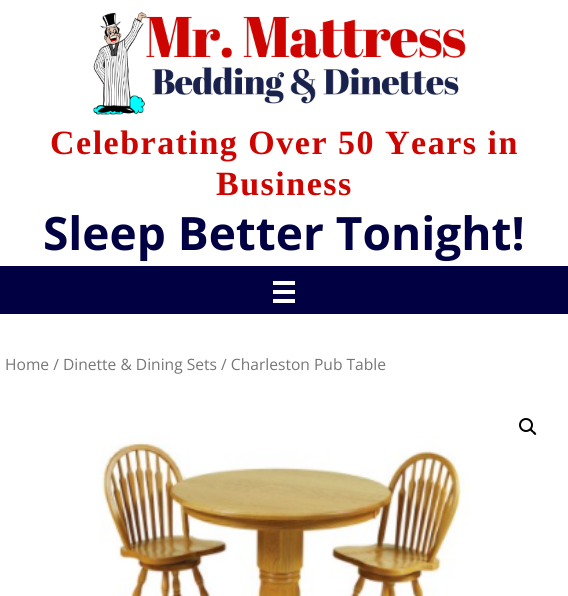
#include <cairo/cairo.h>
#include <math.h>
#include <stddef.h>

static cairo_t *cr;

static void use_color(int r, int g, int b) {
  cairo_set_source_rgb(cr, r / 255.0, g / 255.0, b / 255.0);
}

static void text(double x, double y, const char *s, const char *family, double size, int italic, int bold, int r, int g, int b) {
  cairo_select_font_face(cr, family, italic ? CAIRO_FONT_SLANT_ITALIC : CAIRO_FONT_SLANT_NORMAL,
    bold ? CAIRO_FONT_WEIGHT_BOLD : CAIRO_FONT_WEIGHT_NORMAL);
  cairo_set_font_size(cr, size);
  use_color(r, g, b);
  cairo_move_to(cr, x, y);
  cairo_show_text(cr, s);
}

static void spaced_text(double x, double y, const char *s, double letter, double word) {
  cairo_move_to(cr, x, y);
  while (*s) {
    char ch[5] = {0};
    int n = 0;
    do ch[n++] = *s++; while ((*s & 0xC0) == 0x80);
    cairo_show_text(cr, ch);
    cairo_rel_move_to(cr, letter + word * (*ch == ' '), 0);
  }
}

static void box(double x, double y, double w, double h, int r, int g, int b) {
  use_color(r, g, b);
  cairo_rectangle(cr, x, y, w, h);
  cairo_fill(cr);
}

static void picture(const char *path, double x, double y, double w, double h) {
  cairo_surface_t *image = cairo_image_surface_create_from_png(path);
  cairo_save(cr);
  cairo_set_source_surface(cr, image, x, y);
  cairo_rectangle(cr, x, y, w, h);
  cairo_fill(cr);
  cairo_restore(cr);
  cairo_surface_destroy(image);
}

static void draw(void) {
  use_color(255, 255, 255);
  cairo_paint(cr);
  box(0, 266, 568, 48, 1, 0, 66);
  picture("img_01.png", 93, 12, 373, 103);
  box(273, 281, 22, 4, 255, 255, 255);
  box(273, 290, 22, 4, 255, 255, 255);
  box(273, 299, 22, 4, 255, 255, 255);
  cairo_arc(cr, 526, 425, 6, 0, 2 * M_PI);
  use_color(0, 0, 0);
  cairo_stroke(cr);
  cairo_new_path(cr);
  cairo_move_to(cr, 530, 429);
  cairo_curve_to(cr, 531.5, 428, 533, 430.5, 533.5, 431);
  cairo_curve_to(cr, 534.5, 431.5, 537, 433.5, 536, 434.5);
  cairo_curve_to(cr, 534.5, 436, 533, 433, 532.5, 432.5);
  cairo_curve_to(cr, 531.5, 432, 529, 430, 530, 429);
  cairo_close_path(cr);
  cairo_fill(cr);
  picture("img_02.png", 100, 436, 370, 160);
  cairo_select_font_face(cr, "Liberation Serif", CAIRO_FONT_SLANT_NORMAL, CAIRO_FONT_WEIGHT_BOLD);
  cairo_set_font_size(cr, 34);
  use_color(205, 4, 0);
  spaced_text(50, 154, "Celebrating Over 50 Years in", 1.5, 0);
  spaced_text(216, 195, "Business", 1.5, 0);
  text(43, 250, "Sleep Better Tonight!", "Open Sans", 46, 0, 1, 1, 0, 66);
  text(5, 370, "Home / Dinette & Dining Sets / Charleston Pub Table", "Open Sans", 15.6, 0, 0, 118, 118, 118);
}

int main(void) {
  cairo_surface_t *surface = cairo_image_surface_create(CAIRO_FORMAT_RGB24, 568, 596);
  cr = cairo_create(surface);
  cairo_font_options_t *options = cairo_font_options_create();
  cairo_font_options_set_hint_metrics(options, CAIRO_HINT_METRICS_OFF);
  cairo_font_options_set_hint_style(options, CAIRO_HINT_STYLE_NONE);
  cairo_set_font_options(cr, options);
  cairo_set_miter_limit(cr, 4);
  draw();
  cairo_surface_write_to_png(surface, "out.png");
  cairo_font_options_destroy(options);
  cairo_destroy(cr);
  cairo_surface_destroy(surface);
  return 0;
}
